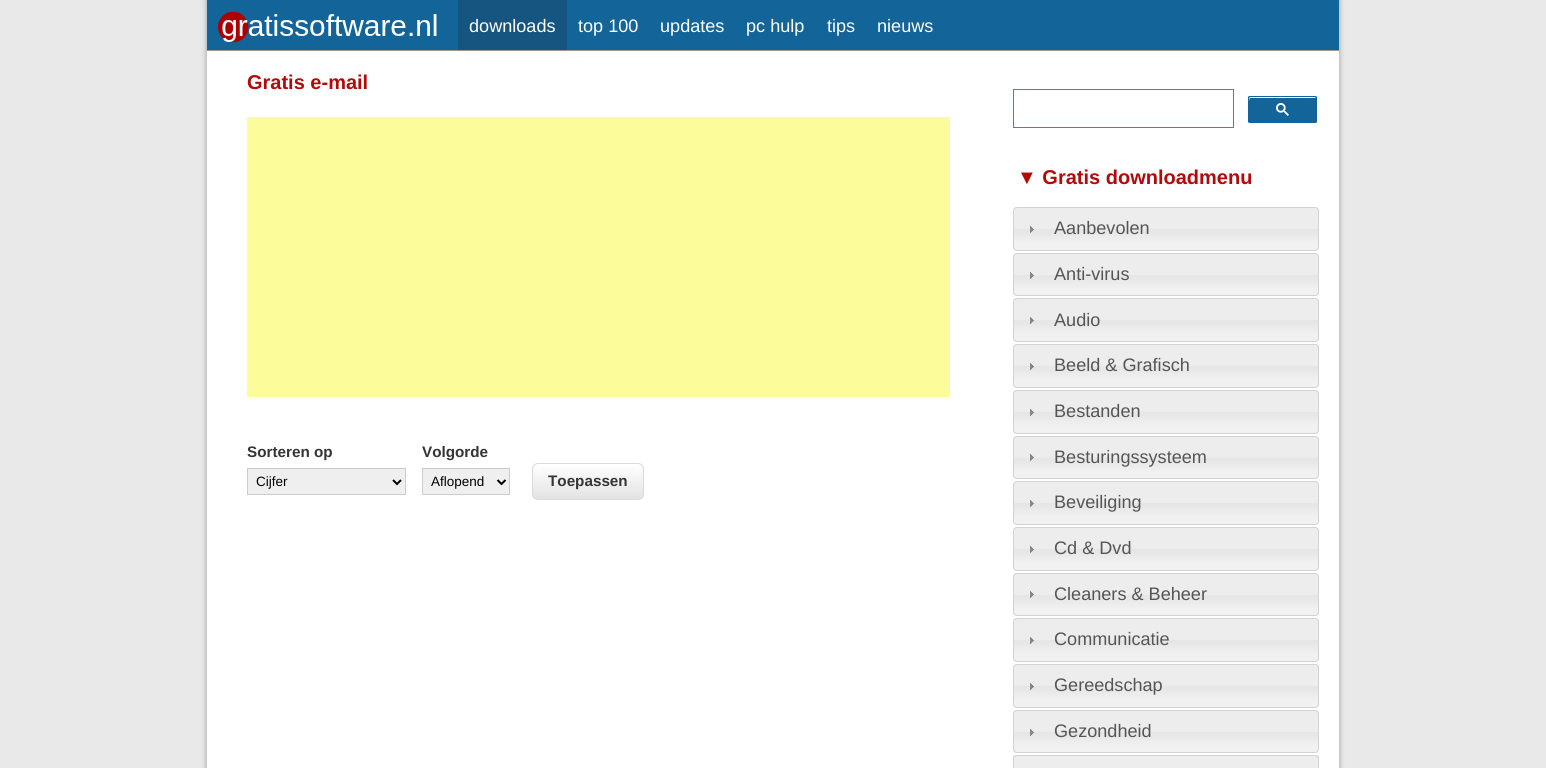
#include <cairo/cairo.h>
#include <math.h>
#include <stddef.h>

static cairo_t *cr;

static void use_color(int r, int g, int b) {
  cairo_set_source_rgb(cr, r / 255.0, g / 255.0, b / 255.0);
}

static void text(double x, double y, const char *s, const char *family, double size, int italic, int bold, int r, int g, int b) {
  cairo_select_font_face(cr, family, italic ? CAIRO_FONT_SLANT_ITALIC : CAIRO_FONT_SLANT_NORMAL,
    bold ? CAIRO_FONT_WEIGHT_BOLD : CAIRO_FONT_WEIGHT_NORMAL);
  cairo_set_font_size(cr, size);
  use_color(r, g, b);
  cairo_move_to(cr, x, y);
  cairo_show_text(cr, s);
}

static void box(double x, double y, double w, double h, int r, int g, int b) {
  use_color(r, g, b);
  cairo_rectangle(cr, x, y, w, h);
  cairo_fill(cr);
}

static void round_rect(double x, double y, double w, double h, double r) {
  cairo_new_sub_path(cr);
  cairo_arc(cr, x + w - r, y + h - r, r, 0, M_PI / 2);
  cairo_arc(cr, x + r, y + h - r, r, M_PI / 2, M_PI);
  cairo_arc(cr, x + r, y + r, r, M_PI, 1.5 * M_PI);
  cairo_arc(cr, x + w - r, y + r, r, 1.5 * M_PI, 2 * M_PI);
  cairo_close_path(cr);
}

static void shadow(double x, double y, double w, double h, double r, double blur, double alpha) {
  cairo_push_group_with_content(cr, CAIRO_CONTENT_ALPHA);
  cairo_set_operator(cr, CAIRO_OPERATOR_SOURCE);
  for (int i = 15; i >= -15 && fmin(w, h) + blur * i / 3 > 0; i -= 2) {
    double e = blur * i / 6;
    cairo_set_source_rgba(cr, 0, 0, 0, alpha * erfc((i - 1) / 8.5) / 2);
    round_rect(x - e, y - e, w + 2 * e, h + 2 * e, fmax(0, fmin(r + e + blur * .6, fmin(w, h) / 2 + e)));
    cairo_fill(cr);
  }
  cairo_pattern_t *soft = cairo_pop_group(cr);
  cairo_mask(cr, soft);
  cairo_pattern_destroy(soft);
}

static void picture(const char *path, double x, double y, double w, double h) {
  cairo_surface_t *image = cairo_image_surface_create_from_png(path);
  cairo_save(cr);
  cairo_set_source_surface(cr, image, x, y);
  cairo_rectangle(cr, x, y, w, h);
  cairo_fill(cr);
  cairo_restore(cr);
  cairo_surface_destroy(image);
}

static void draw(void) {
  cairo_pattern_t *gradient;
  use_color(233, 233, 233);
  cairo_paint(cr);
  use_color(153, 153, 153);
  shadow(207, 0, 1132, 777, 0, 3, 1);
  box(207, 51, 1132, 717, 255, 255, 255);
  box(207, 0, 1132, 50, 18, 100, 153);
  box(207, 50, 1132, 1, 153, 153, 153);
  picture("img_01.png", 218, 11, 219, 32);
  box(458, 0, 109, 50, 22, 85, 127);
  box(247, 117, 703, 280, 253, 252, 155);
  use_color(239, 239, 239);
  cairo_rectangle(cr, 247.5, 468.5, 158, 26);
  cairo_fill_preserve(cr);
  use_color(204, 204, 204);
  cairo_set_line_width(cr, 1);
  cairo_stroke(cr);
  cairo_new_path(cr);
  cairo_move_to(cr, 393, 480);
  cairo_line_to(cr, 397, 484);
  cairo_line_to(cr, 401, 480);
  use_color(0, 0, 0);
  cairo_set_line_width(cr, 2);
  cairo_stroke(cr);
  use_color(239, 239, 239);
  cairo_rectangle(cr, 422.5, 468.5, 87, 26);
  cairo_fill_preserve(cr);
  use_color(204, 204, 204);
  cairo_set_line_width(cr, 1);
  cairo_stroke(cr);
  cairo_new_path(cr);
  cairo_move_to(cr, 497.5, 480);
  cairo_line_to(cr, 501.5, 484);
  cairo_line_to(cr, 505.5, 480);
  use_color(0, 0, 0);
  cairo_set_line_width(cr, 2);
  cairo_stroke(cr);
  cairo_save(cr);
  round_rect(532, 463, 112, 37, 6);
  cairo_clip(cr);
  gradient = cairo_pattern_create_linear(588, 464, 588, 499);
  cairo_pattern_add_color_stop_rgba(gradient, 0, 1, 1, 1, 1);
  cairo_pattern_add_color_stop_rgba(gradient, 1, 0.89, 0.89, 0.89, 1);
  cairo_set_source(cr, gradient);
  cairo_pattern_destroy(gradient);
  cairo_rectangle(cr, 532, 464, 112, 35);
  cairo_fill(cr);
  cairo_restore(cr);
  round_rect(532.5, 463.5, 111, 36, 5.5);
  use_color(219, 219, 219);
  cairo_set_line_width(cr, 1);
  cairo_stroke(cr);
  cairo_rectangle(cr, 1013.5, 89.5, 220, 38);
  use_color(61, 133, 198);
  cairo_stroke(cr);
  use_color(18, 100, 153);
  round_rect(1248, 96, 69, 27, 2);
  cairo_fill(cr);
  use_color(255, 255, 255);
  cairo_set_fill_rule(cr, CAIRO_FILL_RULE_EVEN_ODD);
  cairo_new_path(cr);
  cairo_move_to(cr, 1250, 98);
  cairo_line_to(cr, 1316, 98);
  cairo_line_to(cr, 1315, 97);
  cairo_line_to(cr, 1261, 97);
  cairo_curve_to(cr, 1251, 97, 1249, 94, 1249, 101);
  cairo_close_path(cr);
  cairo_move_to(cr, 1249, 122);
  cairo_line_to(cr, 1249, 118);
  cairo_close_path(cr);
  cairo_fill(cr);
  round_rect(1248.5, 96.5, 68, 26, 1.5);
  use_color(18, 100, 153);
  cairo_stroke(cr);
  picture("img_02.png", 1276, 103, 13, 13);
  picture("img_03.png", 1013, 207, 306, 44);
  round_rect(1013.5, 207.5, 305, 43, 3.5);
  use_color(211, 211, 211);
  cairo_stroke(cr);
  picture("img_04.png", 1030, 226, 4, 7);
  picture("img_05.png", 1013, 253, 306, 43);
  round_rect(1013.5, 253.5, 305, 42, 3.5);
  cairo_stroke(cr);
  picture("img_04.png", 1030, 272, 4, 7);
  picture("img_03.png", 1013, 298, 306, 44);
  round_rect(1013.5, 298.5, 305, 43, 3.5);
  cairo_stroke(cr);
  picture("img_04.png", 1030, 317, 4, 7);
  picture("img_03.png", 1013, 344, 306, 44);
  round_rect(1013.5, 344.5, 305, 43, 3.5);
  cairo_stroke(cr);
  picture("img_04.png", 1030, 363, 4, 7);
  picture("img_03.png", 1013, 390, 306, 44);
  round_rect(1013.5, 390.5, 305, 43, 3.5);
  cairo_stroke(cr);
  picture("img_04.png", 1030, 409, 4, 7);
  picture("img_06.png", 1013, 436, 306, 43);
  round_rect(1013.5, 436.5, 305, 42, 3.5);
  cairo_stroke(cr);
  picture("img_07.png", 1030, 454, 4, 7);
  picture("img_03.png", 1013, 481, 306, 44);
  round_rect(1013.5, 481.5, 305, 43, 3.5);
  cairo_stroke(cr);
  picture("img_04.png", 1030, 500, 4, 7);
  picture("img_03.png", 1013, 527, 306, 44);
  round_rect(1013.5, 527.5, 305, 43, 3.5);
  cairo_stroke(cr);
  picture("img_04.png", 1030, 546, 4, 7);
  picture("img_06.png", 1013, 573, 306, 43);
  round_rect(1013.5, 573.5, 305, 42, 3.5);
  cairo_stroke(cr);
  picture("img_07.png", 1030, 591, 4, 7);
  picture("img_03.png", 1013, 618, 306, 44);
  round_rect(1013.5, 618.5, 305, 43, 3.5);
  cairo_stroke(cr);
  picture("img_04.png", 1030, 637, 4, 7);
  picture("img_03.png", 1013, 664, 306, 44);
  round_rect(1013.5, 664.5, 305, 43, 3.5);
  cairo_stroke(cr);
  picture("img_04.png", 1030, 683, 4, 7);
  picture("img_06.png", 1013, 710, 306, 43);
  round_rect(1013.5, 710.5, 305, 42, 3.5);
  cairo_stroke(cr);
  picture("img_04.png", 1030, 729, 4, 7);
  box(1013, 755, 306, 13, 237, 237, 237);
  round_rect(1013.5, 755.5, 305, 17, 3.5);
  use_color(211, 211, 211);
  cairo_stroke(cr);
  text(469, 32, "downloads", "Liberation Sans", 18.1, 0, 0, 255, 255, 255);
  text(578, 32, "top 100", "Liberation Sans", 18.1, 0, 0, 255, 255, 255);
  text(660, 32, "updates", "Liberation Sans", 18.1, 0, 0, 255, 255, 255);
  text(746, 32, "pc hulp", "Liberation Sans", 18.1, 0, 0, 255, 255, 255);
  text(827, 32, "tips", "Liberation Sans", 18.1, 0, 0, 255, 255, 255);
  text(877, 32, "nieuws", "Liberation Sans", 18.1, 0, 0, 255, 255, 255);
  text(247, 89, "Gratis e-mail", "Liberation Sans", 20, 0, 1, 179, 9, 9);
  text(247, 457, "Sorteren op", "Liberation Sans", 15.25, 0, 1, 53, 53, 53);
  text(256, 486, "Cijfer", "Liberation Sans", 13.5, 0, 0, 0, 0, 0);
  text(422, 457, "Volgorde", "Liberation Sans", 15.25, 0, 1, 53, 53, 53);
  text(431, 486, "Aflopend", "Liberation Sans", 13.5, 0, 0, 0, 0, 0);
  text(548, 486, "Toepassen", "Liberation Sans", 15.25, 0, 1, 53, 53, 53);
  text(1017, 184, "▼ Gratis downloadmenu", "Liberation Sans", 20, 0, 1, 179, 9, 9);
  text(1054, 234, "Aanbevolen", "Liberation Sans", 18.1, 0, 0, 85, 85, 85);
  text(1054, 280, "Anti-virus", "Liberation Sans", 18.1, 0, 0, 85, 85, 85);
  text(1054, 326, "Audio", "Liberation Sans", 18.1, 0, 0, 85, 85, 85);
  text(1054, 371, "Beeld & Grafisch", "Liberation Sans", 18.1, 0, 0, 85, 85, 85);
  text(1054, 417, "Bestanden", "Liberation Sans", 18.1, 0, 0, 85, 85, 85);
  text(1054, 463, "Besturingssysteem", "Liberation Sans", 18.1, 0, 0, 85, 85, 85);
  text(1054, 508, "Beveiliging", "Liberation Sans", 18.1, 0, 0, 85, 85, 85);
  text(1054, 554, "Cd & Dvd", "Liberation Sans", 18.1, 0, 0, 85, 85, 85);
  text(1054, 600, "Cleaners & Beheer", "Liberation Sans", 18.1, 0, 0, 85, 85, 85);
  text(1054, 645, "Communicatie", "Liberation Sans", 18.1, 0, 0, 85, 85, 85);
  text(1054, 691, "Gereedschap", "Liberation Sans", 18.1, 0, 0, 85, 85, 85);
  text(1054, 737, "Gezondheid", "Liberation Sans", 18.1, 0, 0, 85, 85, 85);
}

int main(void) {
  cairo_surface_t *surface = cairo_image_surface_create(CAIRO_FORMAT_RGB24, 1546, 768);
  cr = cairo_create(surface);
  cairo_font_options_t *options = cairo_font_options_create();
  cairo_font_options_set_hint_metrics(options, CAIRO_HINT_METRICS_OFF);
  cairo_font_options_set_hint_style(options, CAIRO_HINT_STYLE_NONE);
  cairo_set_font_options(cr, options);
  cairo_set_miter_limit(cr, 4);
  draw();
  cairo_surface_write_to_png(surface, "out.png");
  cairo_font_options_destroy(options);
  cairo_destroy(cr);
  cairo_surface_destroy(surface);
  return 0;
}
